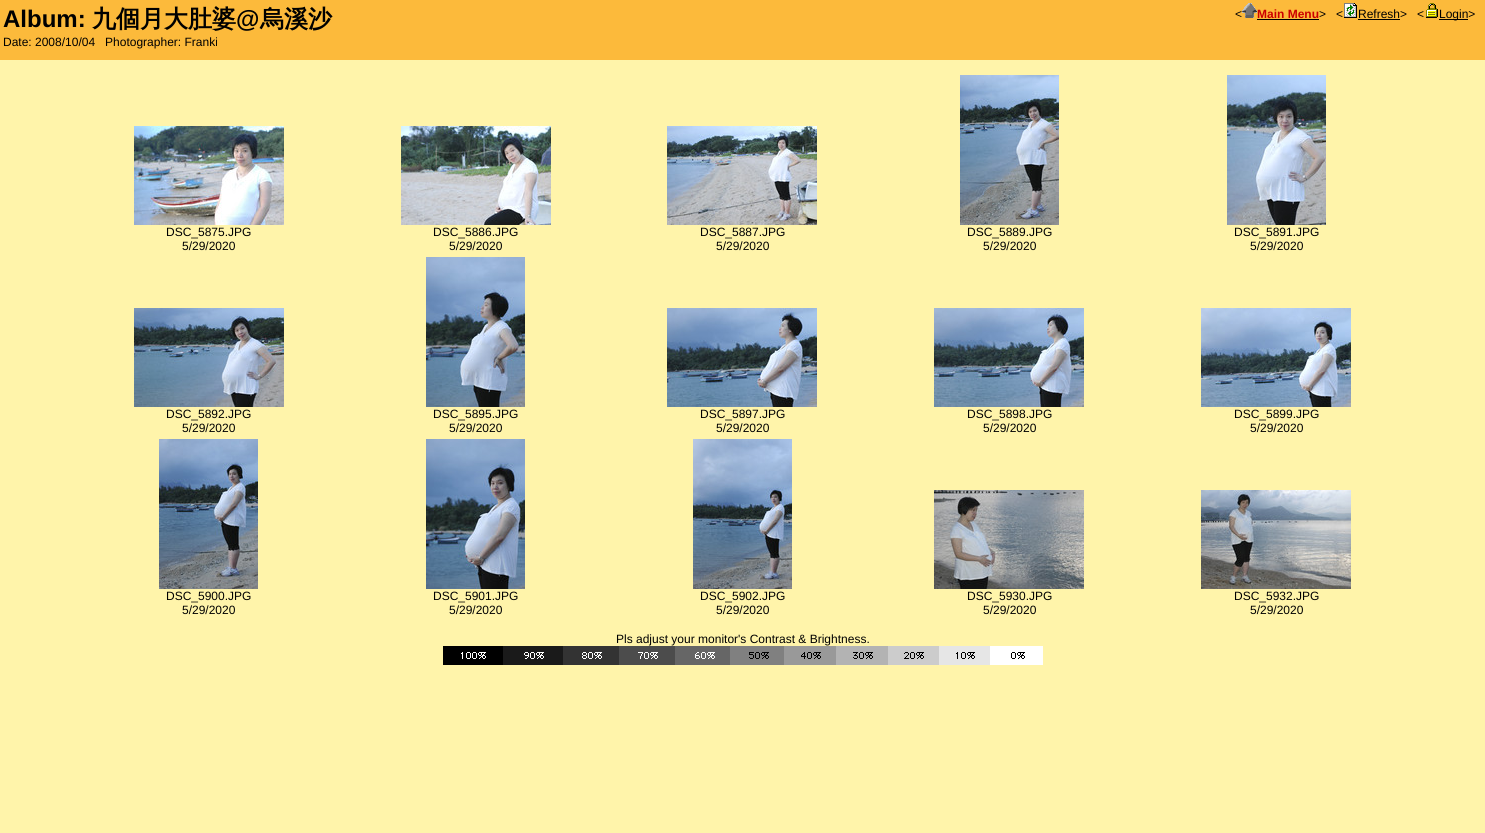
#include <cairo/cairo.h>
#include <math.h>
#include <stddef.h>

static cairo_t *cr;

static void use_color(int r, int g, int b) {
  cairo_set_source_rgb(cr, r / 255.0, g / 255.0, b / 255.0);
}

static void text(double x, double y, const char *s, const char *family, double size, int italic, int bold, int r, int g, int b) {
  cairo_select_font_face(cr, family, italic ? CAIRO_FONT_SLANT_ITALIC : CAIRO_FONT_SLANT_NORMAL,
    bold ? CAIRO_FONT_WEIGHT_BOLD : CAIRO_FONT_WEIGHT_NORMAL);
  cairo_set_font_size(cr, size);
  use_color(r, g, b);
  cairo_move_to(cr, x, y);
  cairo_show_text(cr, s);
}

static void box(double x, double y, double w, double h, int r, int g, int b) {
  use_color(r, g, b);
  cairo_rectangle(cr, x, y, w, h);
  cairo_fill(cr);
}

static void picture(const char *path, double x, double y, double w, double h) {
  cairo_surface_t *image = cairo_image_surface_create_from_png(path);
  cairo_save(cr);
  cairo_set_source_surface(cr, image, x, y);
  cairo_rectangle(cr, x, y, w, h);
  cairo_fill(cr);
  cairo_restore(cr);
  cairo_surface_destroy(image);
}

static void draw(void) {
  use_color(255, 244, 170);
  cairo_paint(cr);
  box(0, 0, 1485, 60, 252, 186, 59);
  picture("img_01.png", 1242, 3, 15, 15);
  box(1257, 19, 62, 1, 0, 0, 0);
  picture("img_02.png", 1344, 3, 13, 15);
  box(1358, 19, 42, 1, 0, 0, 0);
  picture("img_03.png", 1426, 3, 12, 15);
  box(1439, 19, 29, 1, 0, 0, 0);
  picture("img_04.png", 134, 126, 150, 99);
  picture("img_05.png", 401, 126, 150, 99);
  picture("img_06.png", 667, 126, 150, 99);
  picture("img_07.png", 960, 75, 99, 150);
  picture("img_08.png", 1227, 75, 99, 150);
  picture("img_09.png", 134, 308, 150, 99);
  picture("img_10.png", 426, 257, 99, 150);
  picture("img_11.png", 667, 308, 150, 99);
  picture("img_12.png", 934, 308, 150, 99);
  picture("img_13.png", 1201, 308, 150, 99);
  picture("img_14.png", 159, 439, 99, 150);
  picture("img_15.png", 426, 439, 99, 150);
  picture("img_16.png", 693, 439, 99, 150);
  picture("img_17.png", 934, 490, 150, 99);
  picture("img_18.png", 1201, 490, 150, 99);
  picture("img_19.png", 443, 646, 600, 19);
  text(3, 27, "Album:", "Liberation Sans", 24, 0, 1, 0, 0, 0);
  text(92, 27, "九個月大肚婆", "WenQuanYi Zen Hei", 24, 0, 1, 0, 0, 0);
  text(236, 27, "@", "Liberation Sans", 24, 0, 1, 0, 0, 0);
  text(260, 27, "烏溪沙", "WenQuanYi Zen Hei", 24, 0, 1, 0, 0, 0);
  text(3, 46, "Date: 2008/10/04   Photographer: Franki", "Liberation Sans", 12, 0, 0, 0, 0, 0);
  text(1235, 18, "<", "Liberation Sans", 12, 0, 0, 0, 0, 0);
  text(1257, 18, "Main Menu", "Liberation Sans", 12, 0, 1, 204, 0, 0);
  text(1319, 18, ">   <", "Liberation Sans", 12, 0, 0, 0, 0, 0);
  text(1358, 18, "Refresh>   <", "Liberation Sans", 12, 0, 0, 0, 0, 0);
  text(1439, 18, "Login>", "Liberation Sans", 12, 0, 0, 0, 0, 0);
  text(166, 236, "DSC_5875.JPG", "Liberation Sans", 12, 0, 0, 0, 0, 0);
  text(182, 250, "5/29/2020", "Liberation Sans", 12, 0, 0, 0, 0, 0);
  text(433, 236, "DSC_5886.JPG", "Liberation Sans", 12, 0, 0, 0, 0, 0);
  text(449, 250, "5/29/2020", "Liberation Sans", 12, 0, 0, 0, 0, 0);
  text(700, 236, "DSC_5887.JPG", "Liberation Sans", 12, 0, 0, 0, 0, 0);
  text(716, 250, "5/29/2020", "Liberation Sans", 12, 0, 0, 0, 0, 0);
  text(967, 236, "DSC_5889.JPG", "Liberation Sans", 12, 0, 0, 0, 0, 0);
  text(983, 250, "5/29/2020", "Liberation Sans", 12, 0, 0, 0, 0, 0);
  text(1234, 236, "DSC_5891.JPG", "Liberation Sans", 12, 0, 0, 0, 0, 0);
  text(1250, 250, "5/29/2020", "Liberation Sans", 12, 0, 0, 0, 0, 0);
  text(166, 418, "DSC_5892.JPG", "Liberation Sans", 12, 0, 0, 0, 0, 0);
  text(182, 432, "5/29/2020", "Liberation Sans", 12, 0, 0, 0, 0, 0);
  text(433, 418, "DSC_5895.JPG", "Liberation Sans", 12, 0, 0, 0, 0, 0);
  text(449, 432, "5/29/2020", "Liberation Sans", 12, 0, 0, 0, 0, 0);
  text(700, 418, "DSC_5897.JPG", "Liberation Sans", 12, 0, 0, 0, 0, 0);
  text(716, 432, "5/29/2020", "Liberation Sans", 12, 0, 0, 0, 0, 0);
  text(967, 418, "DSC_5898.JPG", "Liberation Sans", 12, 0, 0, 0, 0, 0);
  text(983, 432, "5/29/2020", "Liberation Sans", 12, 0, 0, 0, 0, 0);
  text(1234, 418, "DSC_5899.JPG", "Liberation Sans", 12, 0, 0, 0, 0, 0);
  text(1250, 432, "5/29/2020", "Liberation Sans", 12, 0, 0, 0, 0, 0);
  text(166, 600, "DSC_5900.JPG", "Liberation Sans", 12, 0, 0, 0, 0, 0);
  text(182, 614, "5/29/2020", "Liberation Sans", 12, 0, 0, 0, 0, 0);
  text(433, 600, "DSC_5901.JPG", "Liberation Sans", 12, 0, 0, 0, 0, 0);
  text(449, 614, "5/29/2020", "Liberation Sans", 12, 0, 0, 0, 0, 0);
  text(700, 600, "DSC_5902.JPG", "Liberation Sans", 12, 0, 0, 0, 0, 0);
  text(716, 614, "5/29/2020", "Liberation Sans", 12, 0, 0, 0, 0, 0);
  text(967, 600, "DSC_5930.JPG", "Liberation Sans", 12, 0, 0, 0, 0, 0);
  text(983, 614, "5/29/2020", "Liberation Sans", 12, 0, 0, 0, 0, 0);
  text(1234, 600, "DSC_5932.JPG", "Liberation Sans", 12, 0, 0, 0, 0, 0);
  text(1250, 614, "5/29/2020", "Liberation Sans", 12, 0, 0, 0, 0, 0);
  text(616, 643, "Pls adjust your monitor's Contrast & Brightness.", "Liberation Sans", 12, 0, 0, 0, 0, 0);
}

int main(void) {
  cairo_surface_t *surface = cairo_image_surface_create(CAIRO_FORMAT_RGB24, 1485, 833);
  cr = cairo_create(surface);
  cairo_font_options_t *options = cairo_font_options_create();
  cairo_font_options_set_hint_metrics(options, CAIRO_HINT_METRICS_OFF);
  cairo_font_options_set_hint_style(options, CAIRO_HINT_STYLE_NONE);
  cairo_set_font_options(cr, options);
  cairo_set_miter_limit(cr, 4);
  draw();
  cairo_surface_write_to_png(surface, "out.png");
  cairo_font_options_destroy(options);
  cairo_destroy(cr);
  cairo_surface_destroy(surface);
  return 0;
}
